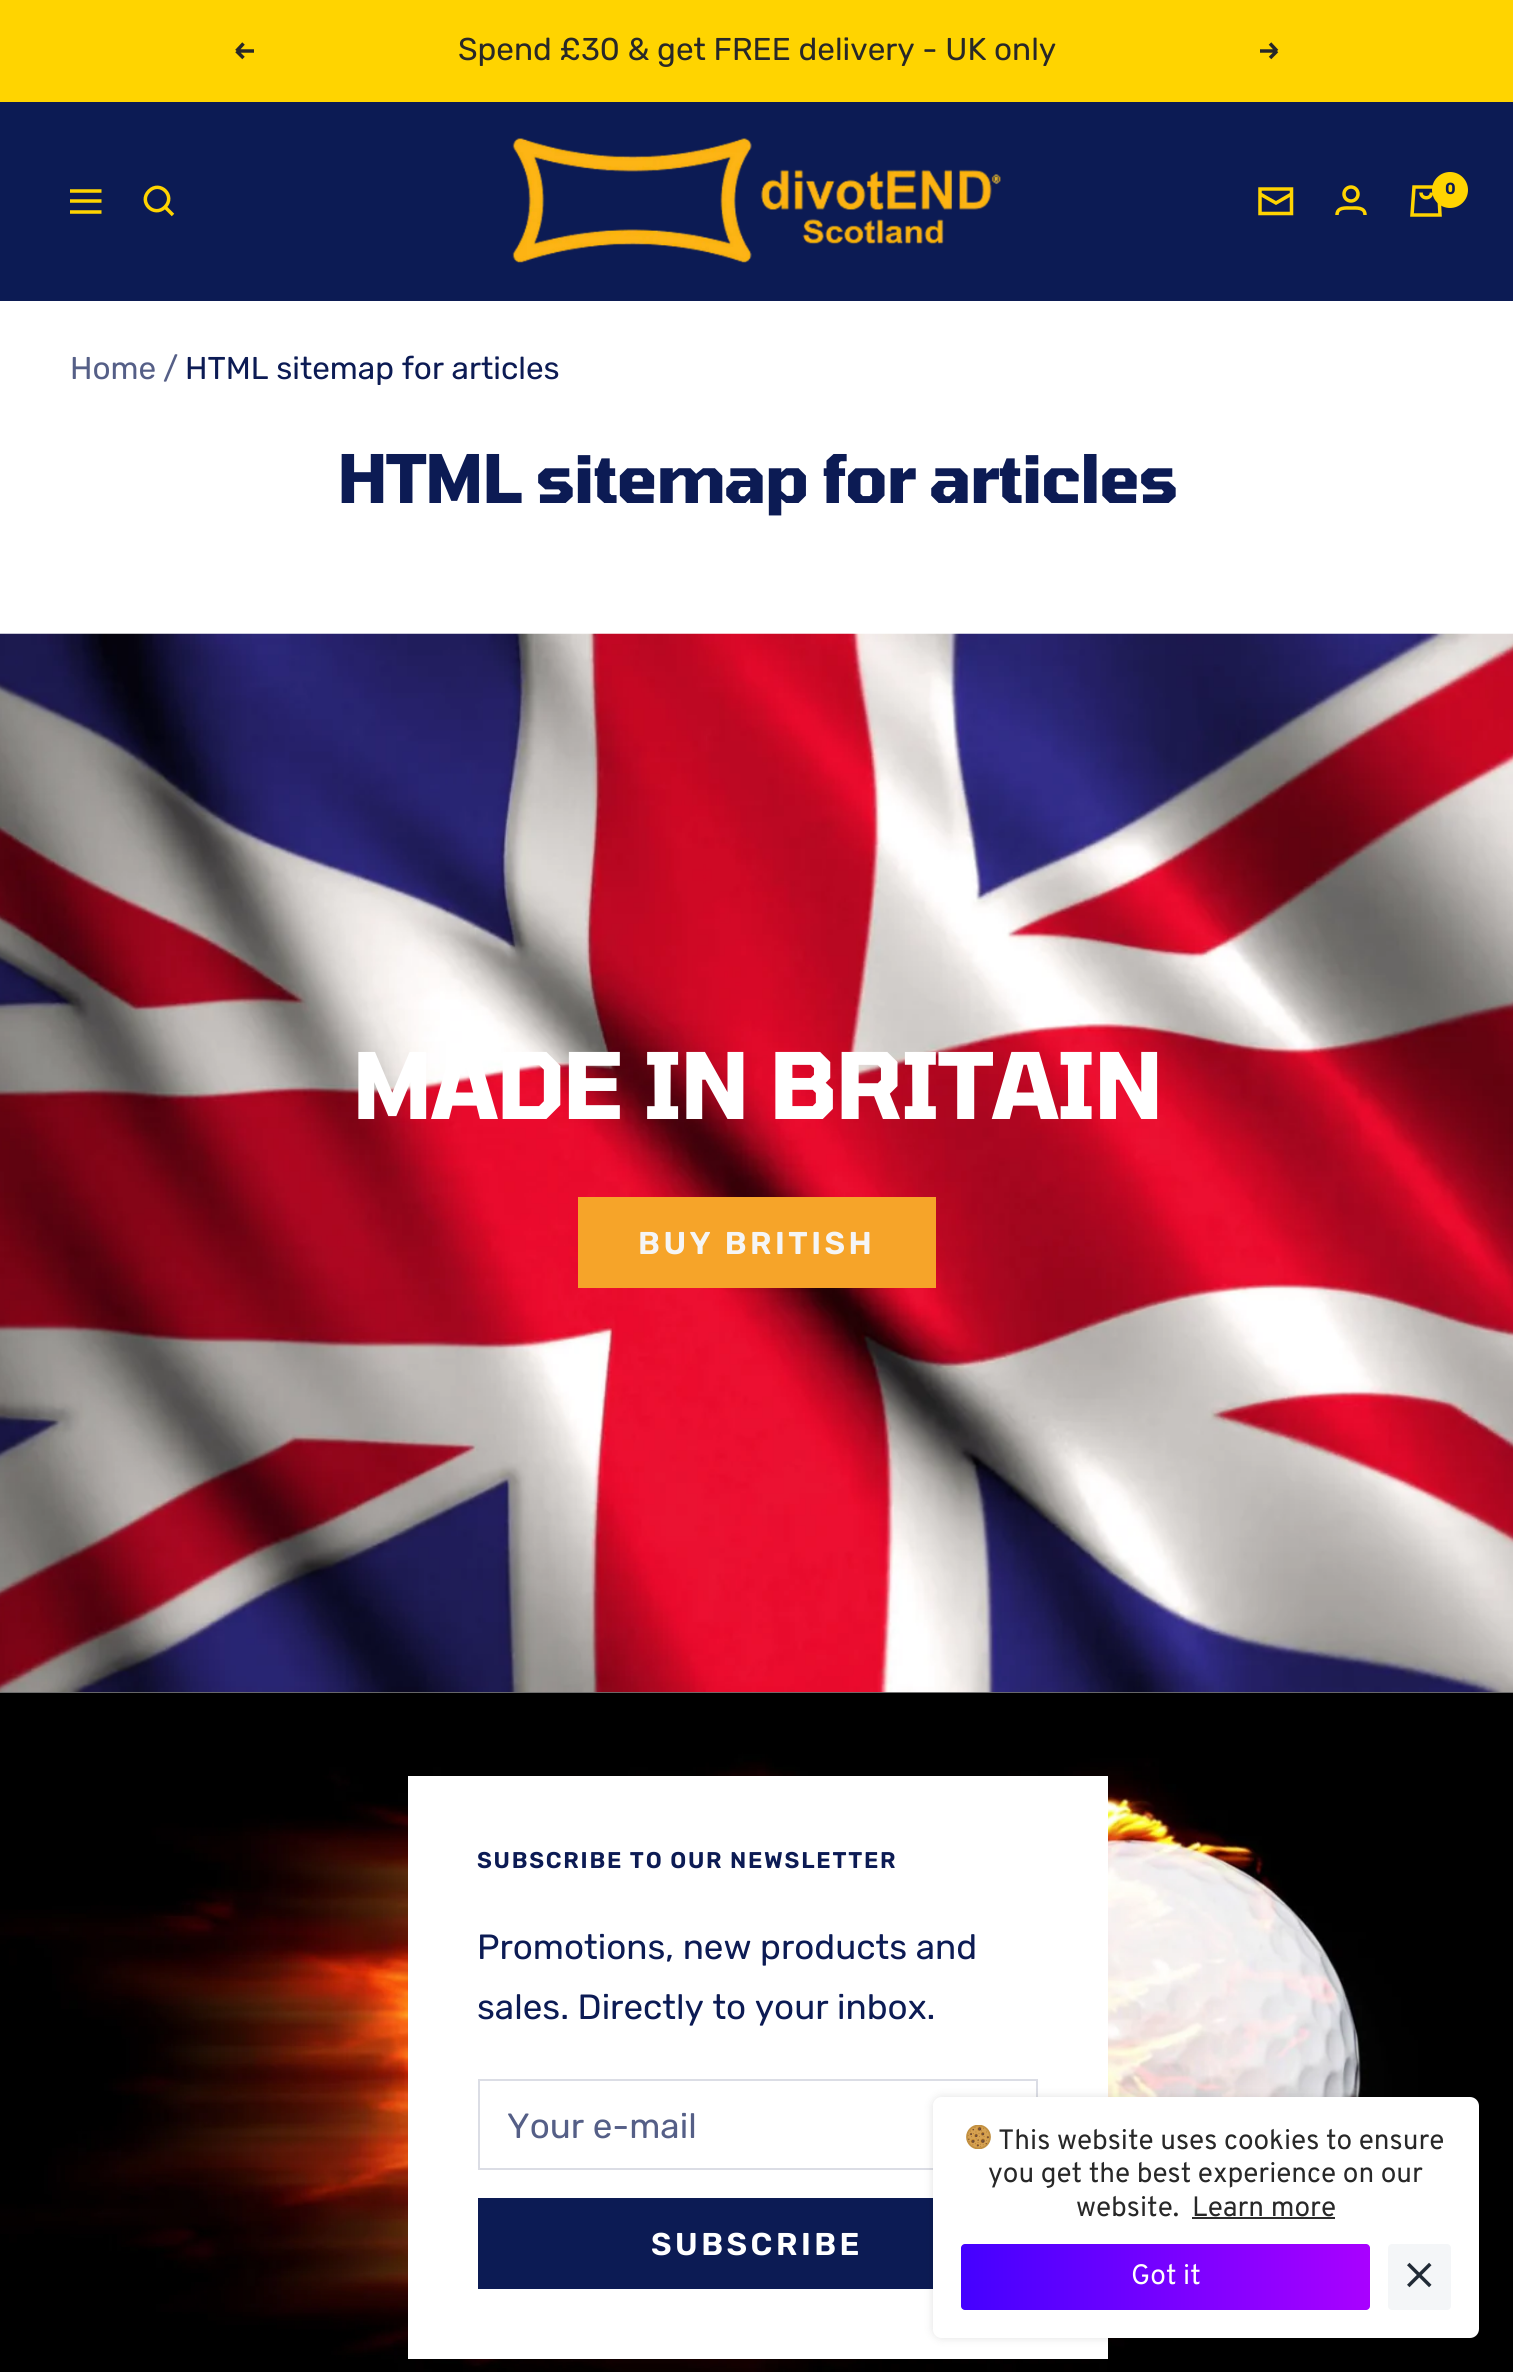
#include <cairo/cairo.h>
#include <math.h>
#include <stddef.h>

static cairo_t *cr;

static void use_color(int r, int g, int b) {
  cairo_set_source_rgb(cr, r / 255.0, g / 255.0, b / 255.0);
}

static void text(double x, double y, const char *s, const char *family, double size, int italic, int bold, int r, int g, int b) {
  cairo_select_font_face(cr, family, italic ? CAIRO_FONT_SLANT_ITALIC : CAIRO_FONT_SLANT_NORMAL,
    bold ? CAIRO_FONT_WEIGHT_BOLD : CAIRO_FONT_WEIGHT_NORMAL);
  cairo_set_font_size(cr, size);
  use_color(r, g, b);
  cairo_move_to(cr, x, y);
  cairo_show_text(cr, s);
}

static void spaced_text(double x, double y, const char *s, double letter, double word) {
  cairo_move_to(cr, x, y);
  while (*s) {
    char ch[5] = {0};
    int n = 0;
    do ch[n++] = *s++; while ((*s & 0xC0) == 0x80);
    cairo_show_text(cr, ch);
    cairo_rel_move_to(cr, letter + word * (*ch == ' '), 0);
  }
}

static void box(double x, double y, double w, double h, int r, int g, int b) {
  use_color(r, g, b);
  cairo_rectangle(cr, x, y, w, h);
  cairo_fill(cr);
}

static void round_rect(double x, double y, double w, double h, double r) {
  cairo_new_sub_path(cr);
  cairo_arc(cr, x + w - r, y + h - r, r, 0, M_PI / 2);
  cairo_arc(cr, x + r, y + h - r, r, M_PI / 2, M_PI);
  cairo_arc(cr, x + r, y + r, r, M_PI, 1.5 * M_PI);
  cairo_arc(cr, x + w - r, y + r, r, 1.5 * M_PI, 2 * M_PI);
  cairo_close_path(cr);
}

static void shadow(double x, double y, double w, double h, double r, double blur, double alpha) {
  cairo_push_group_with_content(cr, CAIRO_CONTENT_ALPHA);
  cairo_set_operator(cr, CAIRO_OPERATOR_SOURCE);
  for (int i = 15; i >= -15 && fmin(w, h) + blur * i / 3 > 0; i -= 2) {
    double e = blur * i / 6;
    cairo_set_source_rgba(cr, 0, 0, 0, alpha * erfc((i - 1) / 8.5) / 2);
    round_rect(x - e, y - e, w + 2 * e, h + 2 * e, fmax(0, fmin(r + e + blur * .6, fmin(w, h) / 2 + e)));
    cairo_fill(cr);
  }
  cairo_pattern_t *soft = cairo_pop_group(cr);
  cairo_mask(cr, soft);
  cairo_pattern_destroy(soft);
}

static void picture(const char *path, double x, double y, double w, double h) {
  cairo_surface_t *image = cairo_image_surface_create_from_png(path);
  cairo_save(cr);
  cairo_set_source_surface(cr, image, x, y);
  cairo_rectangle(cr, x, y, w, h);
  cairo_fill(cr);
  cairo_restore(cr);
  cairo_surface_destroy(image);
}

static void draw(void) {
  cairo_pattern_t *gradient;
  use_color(255, 255, 255);
  cairo_paint(cr);
  box(0, 0, 1513, 102, 255, 212, 0);
  cairo_new_path(cr);
  cairo_move_to(cr, 254, 51);
  cairo_line_to(cr, 236.5, 51);
  cairo_move_to(cr, 236.5, 51);
  cairo_line_to(cr, 243.5, 58);
  cairo_move_to(cr, 236.5, 51);
  cairo_line_to(cr, 243.5, 43.5);
  use_color(40, 40, 40);
  cairo_set_line_width(cr, 3.5);
  cairo_stroke(cr);
  cairo_new_path(cr);
  cairo_move_to(cr, 1260, 51);
  cairo_line_to(cr, 1277, 51);
  cairo_move_to(cr, 1277, 51);
  cairo_line_to(cr, 1270, 58);
  cairo_move_to(cr, 1277, 51);
  cairo_line_to(cr, 1270, 43.5);
  cairo_stroke(cr);
  box(0, 102, 1513, 199, 12, 27, 84);
  cairo_new_path(cr);
  cairo_move_to(cr, 70, 191);
  cairo_line_to(cr, 101.5, 191);
  cairo_move_to(cr, 70, 212);
  cairo_line_to(cr, 101.5, 212);
  cairo_close_path(cr);
  cairo_move_to(cr, 70, 201);
  cairo_line_to(cr, 101.5, 201);
  cairo_close_path(cr);
  use_color(255, 212, 0);
  cairo_stroke(cr);
  cairo_new_path(cr);
  cairo_move_to(cr, 165, 207);
  cairo_curve_to(cr, 176, 196, 160, 180, 149, 191);
  cairo_curve_to(cr, 138, 202, 154, 218, 165, 207);
  cairo_close_path(cr);
  cairo_move_to(cr, 165, 207);
  cairo_line_to(cr, 173, 215);
  cairo_stroke(cr);
  picture("img_01.png", 512, 138, 489, 125);
  cairo_new_path(cr);
  cairo_move_to(cr, 1291.5, 194);
  cairo_line_to(cr, 1276, 203);
  cairo_line_to(cr, 1260, 194);
  cairo_move_to(cr, 1260, 189);
  cairo_line_to(cr, 1291.5, 189);
  cairo_line_to(cr, 1291.5, 213.5);
  cairo_line_to(cr, 1260, 213.5);
  cairo_close_path(cr);
  cairo_stroke(cr);
  cairo_arc(cr, 1351, 194, 7, 0, 2 * M_PI);
  cairo_stroke(cr);
  cairo_new_path(cr);
  cairo_move_to(cr, 1337, 215);
  cairo_curve_to(cr, 1337, 207, 1345.5, 208, 1351, 208);
  cairo_curve_to(cr, 1356.5, 208, 1365, 207, 1365, 215);
  cairo_stroke(cr);
  cairo_new_path(cr);
  cairo_move_to(cr, 1414, 187);
  cairo_line_to(cr, 1438.5, 187);
  cairo_line_to(cr, 1440, 215);
  cairo_line_to(cr, 1412, 215);
  cairo_close_path(cr);
  cairo_move_to(cr, 1421, 192.5);
  cairo_curve_to(cr, 1421, 199.5, 1431.5, 199.5, 1431.5, 192.5);
  cairo_stroke(cr);
  cairo_arc(cr, 1450, 190, 18, 0, 2 * M_PI);
  cairo_fill(cr);
  box(0, 1692, 1513, 1, 247, 247, 247);
  picture("img_03.png", 0, 1692, 1513, 680);
  picture("img_02.png", 0, 633, 1513, 1060);
  box(578, 1197, 358, 91, 246, 164, 41);
  box(408, 1776, 700, 583, 255, 255, 255);
  cairo_rectangle(cr, 479, 2080, 558, 89);
  use_color(219, 221, 229);
  cairo_set_line_width(cr, 2);
  cairo_stroke(cr);
  box(478, 2198, 455, 91, 12, 27, 84);
  use_color(255, 255, 255);
  round_rect(933, 2097, 546, 241, 9);
  cairo_fill(cr);
  cairo_save(cr);
  cairo_set_fill_rule(cr, CAIRO_FILL_RULE_EVEN_ODD);
  cairo_new_path(cr);
  cairo_move_to(cr, 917, 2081);
  cairo_line_to(cr, 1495, 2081);
  cairo_line_to(cr, 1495, 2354);
  cairo_line_to(cr, 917, 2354);
  cairo_close_path(cr);
  cairo_move_to(cr, 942, 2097);
  cairo_line_to(cr, 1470, 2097);
  cairo_curve_to(cr, 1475, 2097, 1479, 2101, 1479, 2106);
  cairo_line_to(cr, 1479, 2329);
  cairo_curve_to(cr, 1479, 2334, 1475, 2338, 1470, 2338);
  cairo_line_to(cr, 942, 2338);
  cairo_curve_to(cr, 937, 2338, 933, 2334, 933, 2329);
  cairo_line_to(cr, 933, 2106);
  cairo_curve_to(cr, 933, 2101, 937, 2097, 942, 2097);
  cairo_close_path(cr);
  cairo_clip(cr);
  use_color(0, 0, 0);
  shadow(933, 2097, 546, 241, 9, 5, 0.12);
  cairo_restore(cr);
  picture("img_04.png", 966, 2125, 25, 24);
  box(1192, 2217, 143, 2, 45, 45, 45);
  gradient = cairo_pattern_create_linear(961, 2277, 1370, 2277);
  cairo_pattern_add_color_stop_rgba(gradient, 0, 0.267, 0.004, 1, 1);
  cairo_pattern_add_color_stop_rgba(gradient, 1, 0.663, 0.004, 1, 1);
  cairo_set_source(cr, gradient);
  cairo_pattern_destroy(gradient);
  round_rect(961, 2244, 409, 66, 4);
  cairo_fill(cr);
  use_color(244, 246, 248);
  round_rect(1388, 2244, 63, 66, 4);
  cairo_fill(cr);
  picture("img_05.png", 1407, 2262, 25, 26);
  text(458, 60, "Spend £30 & get FREE delivery - UK only", "Rubik", 31.5, 0, 0, 40, 40, 40);
  text(1445, 194, "0", "Rubik SemiBold", 16, 0, 0, 12, 27, 84);
  text(70, 379, "Home", "Rubik", 31.5, 0, 0, 85, 95, 135);
  text(163, 379, "/", "Rubik", 31.5, 0, 0, 85, 95, 135);
  text(185, 379, "HTML sitemap for articles", "Rubik", 31.5, 0, 0, 12, 27, 84);
  cairo_select_font_face(cr, "Tomorrow", CAIRO_FONT_SLANT_NORMAL, CAIRO_FONT_WEIGHT_BOLD);
  cairo_set_font_size(cr, 66.5);
  spaced_text(337, 503, "HTML sitemap for articles", -1.75, 0);
  cairo_set_font_size(cr, 91);
  use_color(255, 255, 255);
  spaced_text(352, 1119, "MADE IN BRITAIN", -1.6, 0);
  cairo_select_font_face(cr, "Rubik SemiBold", CAIRO_FONT_SLANT_NORMAL, CAIRO_FONT_WEIGHT_NORMAL);
  cairo_set_font_size(cr, 31.5);
  use_color(245, 245, 245);
  spaced_text(638, 1254, "BUY BRITISH", 3.5, 0);
  cairo_set_font_size(cr, 22.75);
  use_color(12, 27, 84);
  spaced_text(477, 1868, "SUBSCRIBE TO OUR NEWSLETTER", 1.75, 0);
  text(477, 1959, "Promotions, new products and", "Rubik", 35, 0, 0, 12, 27, 84);
  text(477, 2019, "sales. Directly to your inbox.", "Rubik", 35, 0, 0, 12, 27, 84);
  text(507, 2138, "Your e-mail", "Rubik", 35, 0, 0, 85, 95, 135);
  cairo_select_font_face(cr, "Rubik SemiBold", CAIRO_FONT_SLANT_NORMAL, CAIRO_FONT_WEIGHT_NORMAL);
  cairo_set_font_size(cr, 31.5);
  use_color(255, 255, 255);
  spaced_text(651, 2255, "SUBSCRIBE", 3.5, 0);
  text(998, 2149, "This website uses cookies to ensure", "Overpass", 28, 0, 0, 40, 40, 40);
  text(988, 2182, "you get the best experience on our", "Overpass", 28, 0, 0, 40, 40, 40);
  text(1076, 2216, "website.", "Overpass", 28, 0, 0, 40, 40, 40);
  text(1192, 2216, "Learn more", "Overpass", 28, 0, 0, 40, 40, 40);
  text(1131, 2284, "Got it", "Overpass", 28, 0, 0, 255, 255, 255);
}

int main(void) {
  cairo_surface_t *surface = cairo_image_surface_create(CAIRO_FORMAT_RGB24, 1513, 2372);
  cr = cairo_create(surface);
  cairo_font_options_t *options = cairo_font_options_create();
  cairo_font_options_set_hint_metrics(options, CAIRO_HINT_METRICS_OFF);
  cairo_font_options_set_hint_style(options, CAIRO_HINT_STYLE_NONE);
  cairo_set_font_options(cr, options);
  cairo_set_miter_limit(cr, 4);
  draw();
  cairo_surface_write_to_png(surface, "out.png");
  cairo_font_options_destroy(options);
  cairo_destroy(cr);
  cairo_surface_destroy(surface);
  return 0;
}
